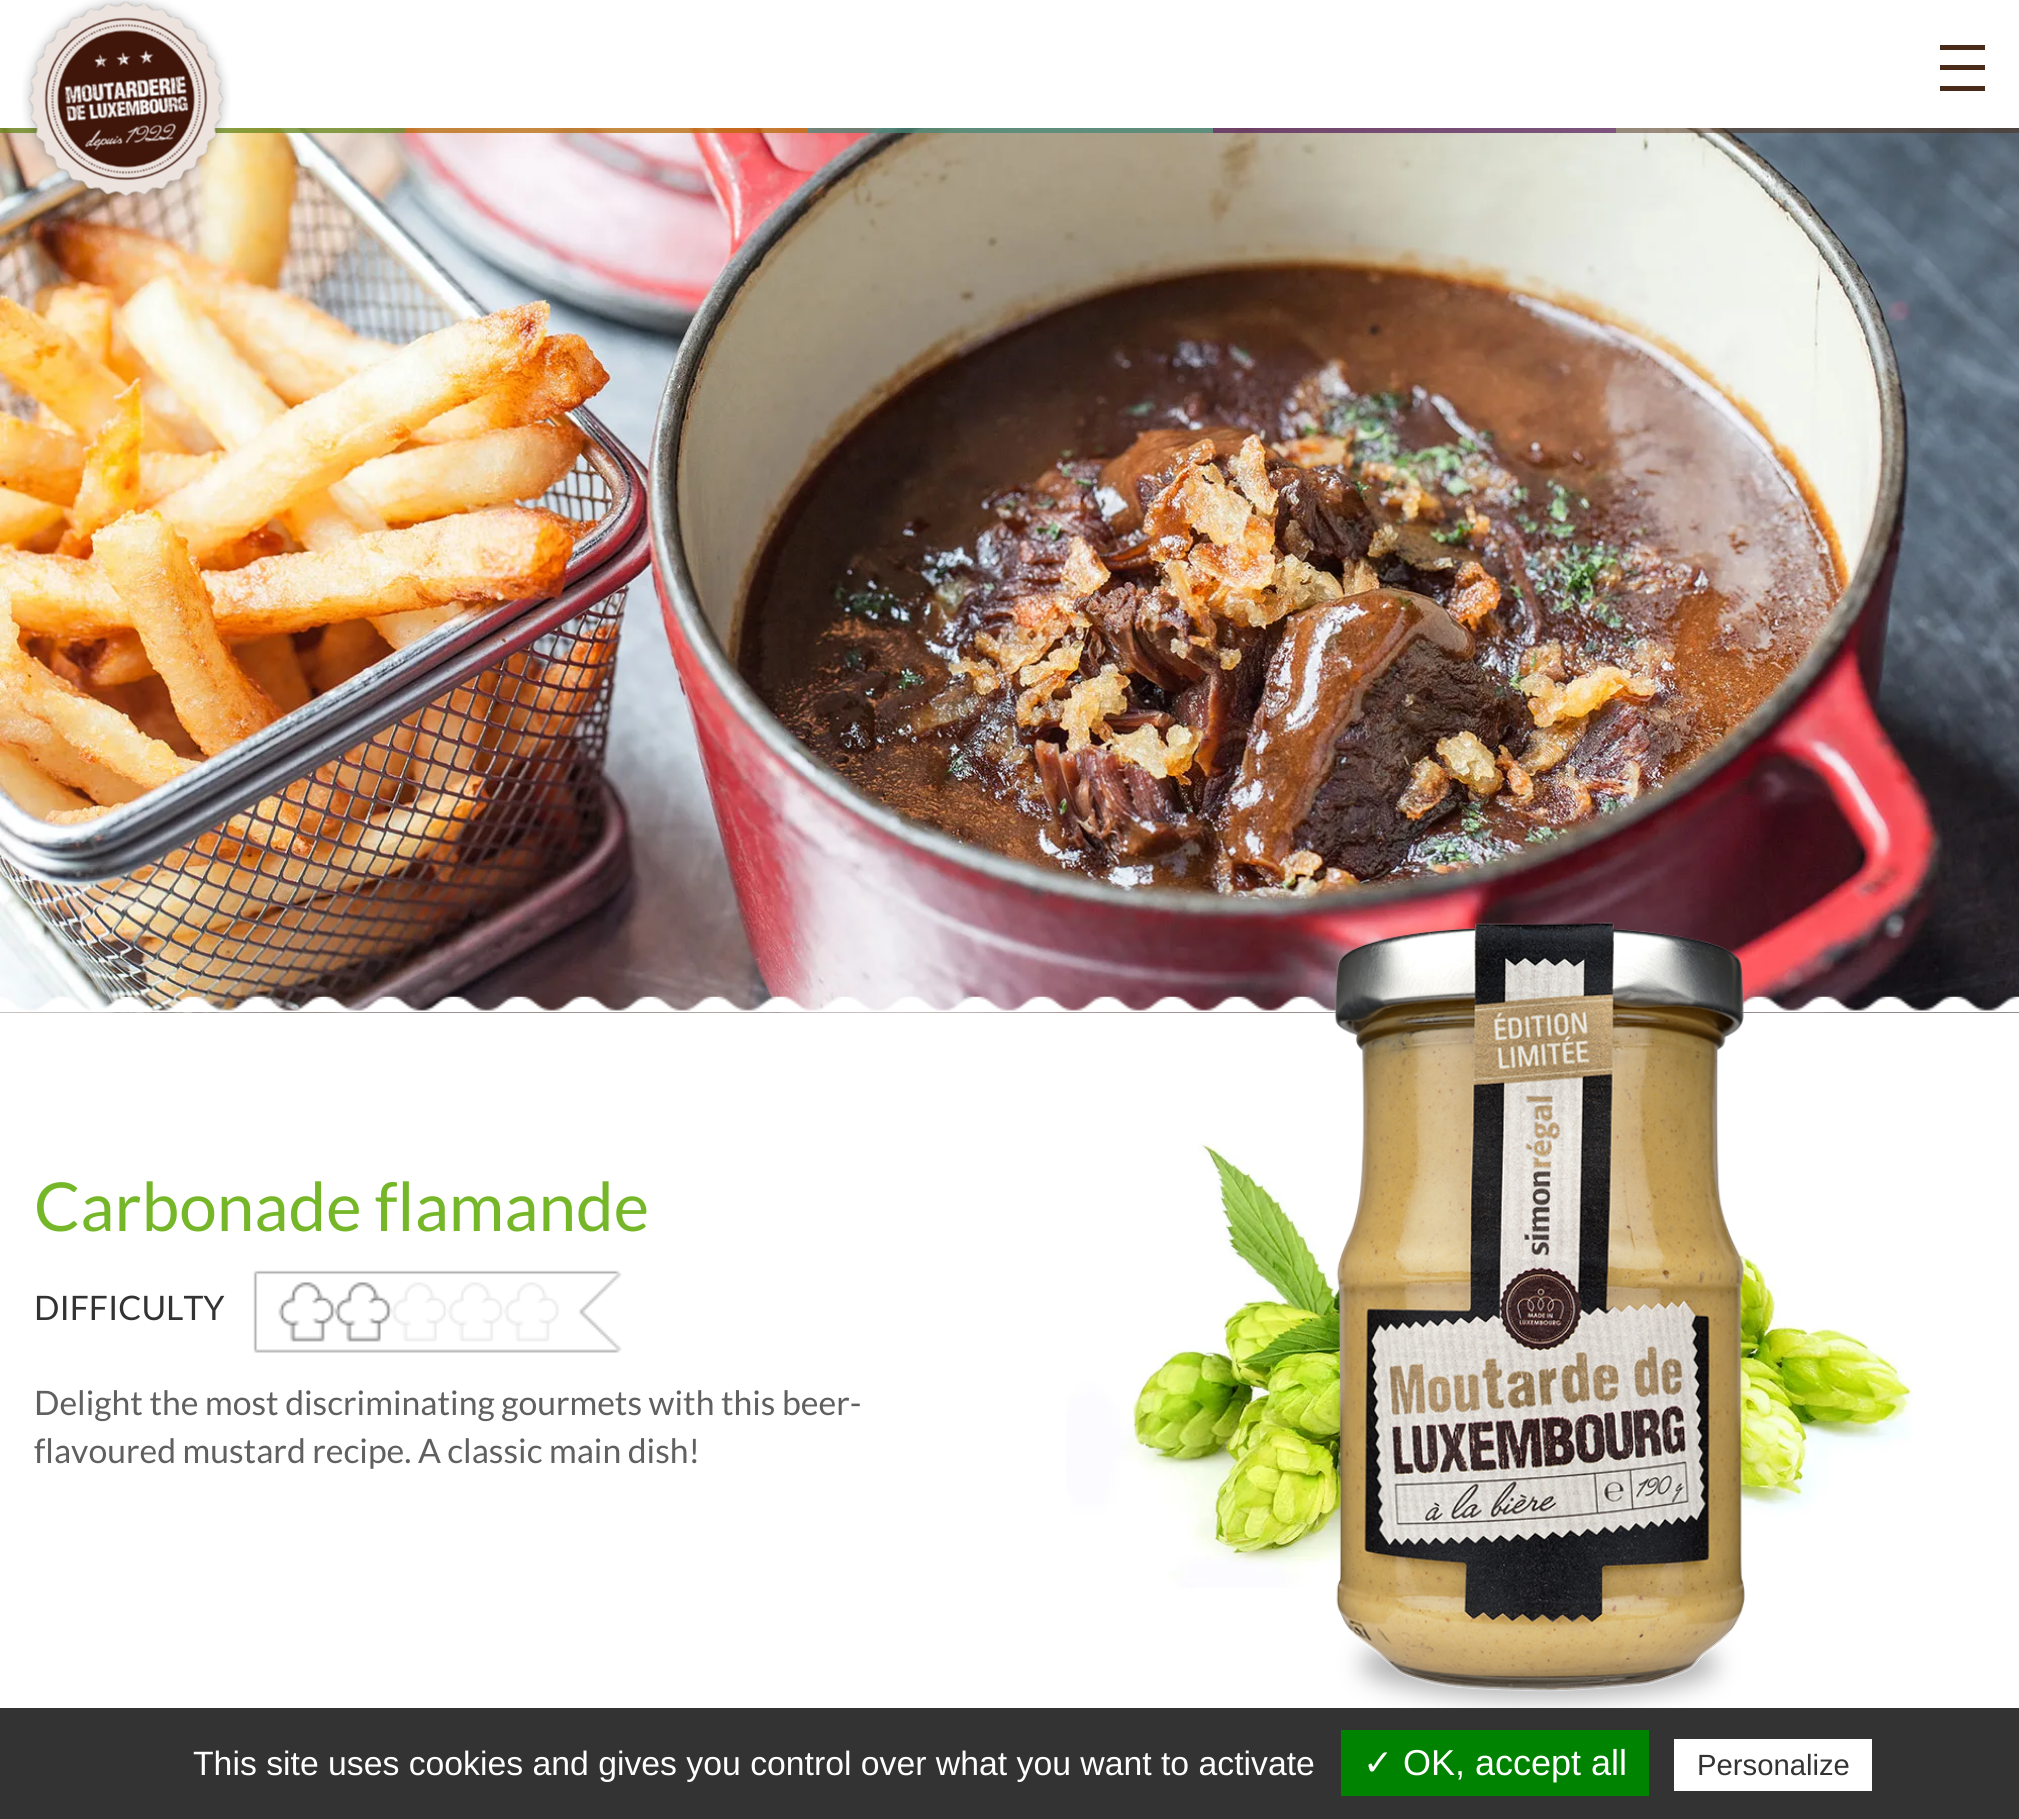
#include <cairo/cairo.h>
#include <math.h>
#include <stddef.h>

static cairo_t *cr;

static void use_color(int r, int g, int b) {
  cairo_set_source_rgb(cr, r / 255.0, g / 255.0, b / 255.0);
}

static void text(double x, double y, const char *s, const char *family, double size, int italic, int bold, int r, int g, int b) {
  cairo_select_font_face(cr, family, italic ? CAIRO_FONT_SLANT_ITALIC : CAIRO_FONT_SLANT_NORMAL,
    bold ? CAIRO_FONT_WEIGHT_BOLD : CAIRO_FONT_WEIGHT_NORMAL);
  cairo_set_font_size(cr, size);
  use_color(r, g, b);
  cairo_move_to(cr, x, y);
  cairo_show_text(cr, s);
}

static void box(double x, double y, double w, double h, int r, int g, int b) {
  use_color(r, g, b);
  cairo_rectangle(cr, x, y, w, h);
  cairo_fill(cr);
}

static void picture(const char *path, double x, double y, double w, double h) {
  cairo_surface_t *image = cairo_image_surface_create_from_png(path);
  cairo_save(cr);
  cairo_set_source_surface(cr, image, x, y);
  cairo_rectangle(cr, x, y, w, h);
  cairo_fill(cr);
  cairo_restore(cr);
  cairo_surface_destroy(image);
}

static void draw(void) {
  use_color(255, 255, 255);
  cairo_paint(cr);
  picture("img_01.png", 0, 1012, 2019, 1);
  picture("img_02.png", 0, 128, 2019, 885);
  cairo_set_source_rgba(cr, 0.282, 0.157, 0.082, 0.5);
  cairo_rectangle(cr, 0, 128, 2019, 5);
  cairo_fill(cr);
  cairo_set_source_rgba(cr, 0.455, 0.71, 0.114, 0.5);
  cairo_rectangle(cr, 0, 128, 405, 5);
  cairo_fill(cr);
  picture("img_03.png", 22, 0, 208, 203);
  box(1940, 45, 45, 5, 74, 42, 24);
  box(1940, 65, 45, 5, 74, 42, 24);
  box(1940, 86, 45, 5, 74, 42, 24);
  cairo_set_source_rgba(cr, 0.941, 0.541, 0, 0.5);
  cairo_rectangle(cr, 405, 128, 403, 5);
  cairo_fill(cr);
  cairo_set_source_rgba(cr, 0.278, 0.722, 0.671, 0.5);
  cairo_rectangle(cr, 808, 128, 405, 5);
  cairo_fill(cr);
  cairo_set_source_rgba(cr, 0.384, 0.129, 0.506, 0.5);
  cairo_rectangle(cr, 1213, 128, 403, 5);
  cairo_fill(cr);
  picture("img_04.png", 0, 996, 2019, 17);
  picture("img_05.png", 253, 1270, 369, 83);
  picture("img_07.png", 1066, 1142, 847, 446);
  picture("img_06.png", 1334, 922, 411, 786);
  box(0, 1708, 2019, 111, 51, 51, 51);
  box(1341, 1730, 308, 66, 0, 131, 0);
  box(1674, 1739, 198, 52, 255, 255, 255);
  text(34, 1231, "Carbonade flamande", "Lato", 67.5, 0, 0, 118, 183, 41);
  text(34, 1320, "DIFFICULTY", "Lato", 33.75, 0, 0, 51, 51, 51);
  text(34, 1415, "Delight the most discriminating gourmets with this beer-", "Lato", 33.75, 0, 0, 96, 96, 96);
  text(34, 1463, "flavoured mustard recipe. A classic main dish!", "Lato", 33.75, 0, 0, 96, 96, 96);
  text(193, 1775, "This site uses cookies and gives you control over what you want to activate", "Liberation Sans", 33.75, 0, 0, 255, 255, 255);
  text(1363, 1775, "✓", "DejaVu Sans", 36, 0, 0, 255, 255, 255);
  text(1403, 1775, "OK, accept all", "Liberation Sans", 36, 0, 0, 255, 255, 255);
  text(1697, 1775, "Personalize", "Liberation Sans", 29.25, 0, 0, 51, 51, 51);
}

int main(void) {
  cairo_surface_t *surface = cairo_image_surface_create(CAIRO_FORMAT_RGB24, 2019, 1819);
  cr = cairo_create(surface);
  cairo_font_options_t *options = cairo_font_options_create();
  cairo_font_options_set_hint_metrics(options, CAIRO_HINT_METRICS_OFF);
  cairo_font_options_set_hint_style(options, CAIRO_HINT_STYLE_NONE);
  cairo_set_font_options(cr, options);
  cairo_set_miter_limit(cr, 4);
  draw();
  cairo_surface_write_to_png(surface, "out.png");
  cairo_font_options_destroy(options);
  cairo_destroy(cr);
  cairo_surface_destroy(surface);
  return 0;
}
